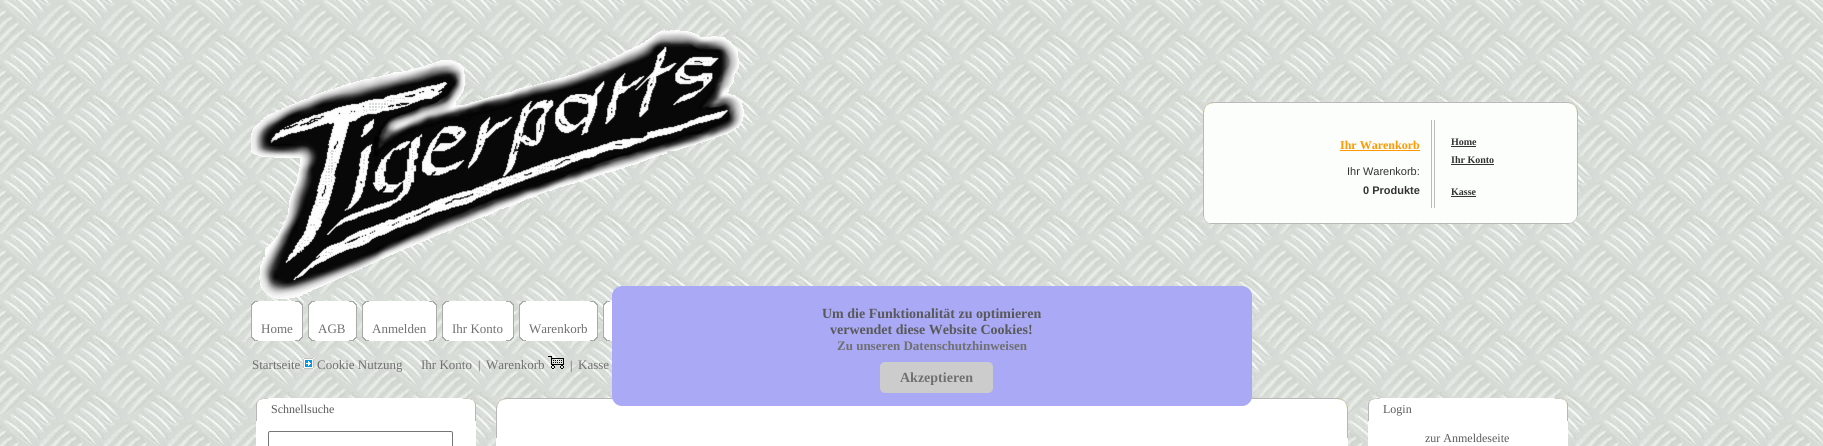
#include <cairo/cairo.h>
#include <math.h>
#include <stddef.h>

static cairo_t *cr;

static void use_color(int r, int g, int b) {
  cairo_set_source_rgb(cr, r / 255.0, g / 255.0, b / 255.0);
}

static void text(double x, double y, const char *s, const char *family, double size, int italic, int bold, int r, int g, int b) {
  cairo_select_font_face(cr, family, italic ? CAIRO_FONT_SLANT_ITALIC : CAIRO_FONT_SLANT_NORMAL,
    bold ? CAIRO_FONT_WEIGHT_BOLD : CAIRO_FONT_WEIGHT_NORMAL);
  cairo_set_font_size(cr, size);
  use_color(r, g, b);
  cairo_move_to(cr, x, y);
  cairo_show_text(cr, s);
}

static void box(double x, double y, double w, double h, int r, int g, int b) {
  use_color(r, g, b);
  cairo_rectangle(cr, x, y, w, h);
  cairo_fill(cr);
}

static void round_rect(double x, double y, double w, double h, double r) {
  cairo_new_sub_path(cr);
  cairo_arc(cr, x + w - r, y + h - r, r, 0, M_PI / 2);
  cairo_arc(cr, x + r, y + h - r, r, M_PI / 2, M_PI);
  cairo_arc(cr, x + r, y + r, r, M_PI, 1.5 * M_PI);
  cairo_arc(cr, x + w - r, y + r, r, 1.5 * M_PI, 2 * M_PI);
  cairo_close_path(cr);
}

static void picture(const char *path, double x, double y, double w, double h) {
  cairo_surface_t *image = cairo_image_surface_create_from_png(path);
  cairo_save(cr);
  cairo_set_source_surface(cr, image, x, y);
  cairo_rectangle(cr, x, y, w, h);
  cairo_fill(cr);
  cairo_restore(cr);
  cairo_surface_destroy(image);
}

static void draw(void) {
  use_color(255, 255, 255);
  cairo_paint(cr);
  picture("img_01.png", 0, 0, 1823, 446);
  picture("img_02.png", 251, 30, 493, 269);
  picture("img_03.png", 1203, 102, 375, 122);
  box(1340, 150, 80, 1, 255, 153, 0);
  box(1451, 146, 25, 1, 51, 51, 51);
  box(1451, 164, 43, 1, 51, 51, 51);
  box(1451, 196, 25, 1, 51, 51, 51);
  picture("img_04.png", 251, 301, 7, 40);
  box(258, 301, 37, 40, 255, 255, 255);
  picture("img_05.png", 295, 301, 8, 40);
  picture("img_06.png", 308, 301, 7, 40);
  box(315, 301, 34, 40, 255, 255, 255);
  picture("img_07.png", 349, 301, 8, 40);
  picture("img_08.png", 362, 301, 7, 40);
  box(369, 301, 60, 40, 255, 255, 255);
  picture("img_09.png", 429, 301, 8, 40);
  picture("img_10.png", 442, 301, 7, 40);
  box(449, 301, 57, 40, 255, 255, 255);
  picture("img_11.png", 506, 301, 8, 40);
  picture("img_12.png", 519, 301, 7, 40);
  box(526, 301, 64, 40, 255, 255, 255);
  picture("img_13.png", 590, 301, 8, 40);
  picture("img_14.png", 603, 301, 7, 40);
  box(610, 301, 2, 40, 255, 255, 255);
  picture("img_15.png", 303, 358, 11, 11);
  picture("img_16.png", 548, 356, 16, 13);
  picture("img_17.png", 256, 398, 12, 23);
  box(268, 398, 195, 23, 255, 255, 255);
  picture("img_18.png", 463, 398, 13, 23);
  box(256, 421, 220, 25, 255, 255, 255);
  round_rect(268.5, 431.5, 184, 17, 1.5);
  use_color(118, 118, 118);
  cairo_set_line_width(cr, 1);
  cairo_stroke(cr);
  picture("img_19.png", 496, 398, 12, 40);
  box(508, 399, 827, 39, 255, 255, 255);
  box(508, 398, 827, 1, 183, 183, 183);
  picture("img_20.png", 1335, 398, 13, 40);
  box(496, 438, 852, 8, 255, 255, 255);
  picture("img_21.png", 1368, 398, 12, 23);
  box(1380, 398, 175, 23, 255, 255, 255);
  picture("img_22.png", 1555, 398, 13, 23);
  box(1368, 421, 200, 25, 255, 255, 255);
  use_color(169, 169, 245);
  round_rect(612, 286, 640, 120, 10);
  cairo_fill(cr);
  use_color(204, 204, 204);
  round_rect(880, 362, 113, 31, 5);
  cairo_fill(cr);
  text(1340, 149, "Ihr Warenkorb", "Liberation Serif", 12, 0, 1, 255, 153, 0);
  text(1347, 175, "Ihr Warenkorb:", "Liberation Sans", 11, 0, 0, 51, 51, 51);
  text(1363, 194, "0 Produkte", "Liberation Sans", 11, 0, 1, 51, 51, 51);
  text(1451, 145, "Home", "Liberation Serif", 10, 0, 1, 51, 51, 51);
  text(1451, 163, "Ihr Konto", "Liberation Serif", 10, 0, 1, 51, 51, 51);
  text(1451, 195, "Kasse", "Liberation Serif", 10, 0, 1, 51, 51, 51);
  text(261, 333, "Home", "Liberation Serif", 13, 0, 0, 112, 112, 112);
  text(318, 333, "AGB", "Liberation Serif", 13, 0, 0, 112, 112, 112);
  text(372, 333, "Anmelden", "Liberation Serif", 13, 0, 0, 112, 112, 112);
  text(452, 333, "Ihr Konto", "Liberation Serif", 13, 0, 0, 112, 112, 112);
  text(529, 333, "Warenkorb", "Liberation Serif", 13, 0, 0, 112, 112, 112);
  text(252, 369, "Startseite", "Liberation Serif", 13, 0, 0, 112, 112, 112);
  text(317, 369, "Cookie Nutzung", "Liberation Serif", 13, 0, 0, 112, 112, 112);
  text(421, 369, "Ihr Konto", "Liberation Serif", 13, 0, 0, 112, 112, 112);
  text(478, 369, "|", "Liberation Serif", 12, 0, 0, 89, 89, 89);
  text(486, 369, "Warenkorb", "Liberation Serif", 13, 0, 0, 112, 112, 112);
  text(570, 369, "|", "Liberation Serif", 12, 0, 0, 89, 89, 89);
  text(578, 369, "Kasse", "Liberation Serif", 13, 0, 0, 112, 112, 112);
  text(271, 413, "Schnellsuche", "Liberation Serif", 12, 0, 0, 89, 89, 89);
  text(1383, 413, "Login", "Liberation Serif", 12, 0, 0, 89, 89, 89);
  text(1425, 442, "zur Anmeldeseite", "Liberation Serif", 12, 0, 0, 89, 89, 89);
  text(822, 318, "Um die Funktionalität zu optimieren", "Liberation Serif", 14, 0, 1, 89, 89, 89);
  text(830, 334, "verwendet diese Website Cookies!", "Liberation Serif", 14, 0, 1, 89, 89, 89);
  text(837, 350, "Zu unseren Datenschutzhinweisen", "Liberation Serif", 13, 0, 1, 112, 112, 112);
  text(900, 382, "Akzeptieren", "Liberation Serif", 14, 0, 1, 112, 112, 112);
}

int main(void) {
  cairo_surface_t *surface = cairo_image_surface_create(CAIRO_FORMAT_RGB24, 1823, 446);
  cr = cairo_create(surface);
  cairo_font_options_t *options = cairo_font_options_create();
  cairo_font_options_set_hint_metrics(options, CAIRO_HINT_METRICS_OFF);
  cairo_font_options_set_hint_style(options, CAIRO_HINT_STYLE_NONE);
  cairo_set_font_options(cr, options);
  cairo_set_miter_limit(cr, 4);
  draw();
  cairo_surface_write_to_png(surface, "out.png");
  cairo_font_options_destroy(options);
  cairo_destroy(cr);
  cairo_surface_destroy(surface);
  return 0;
}
